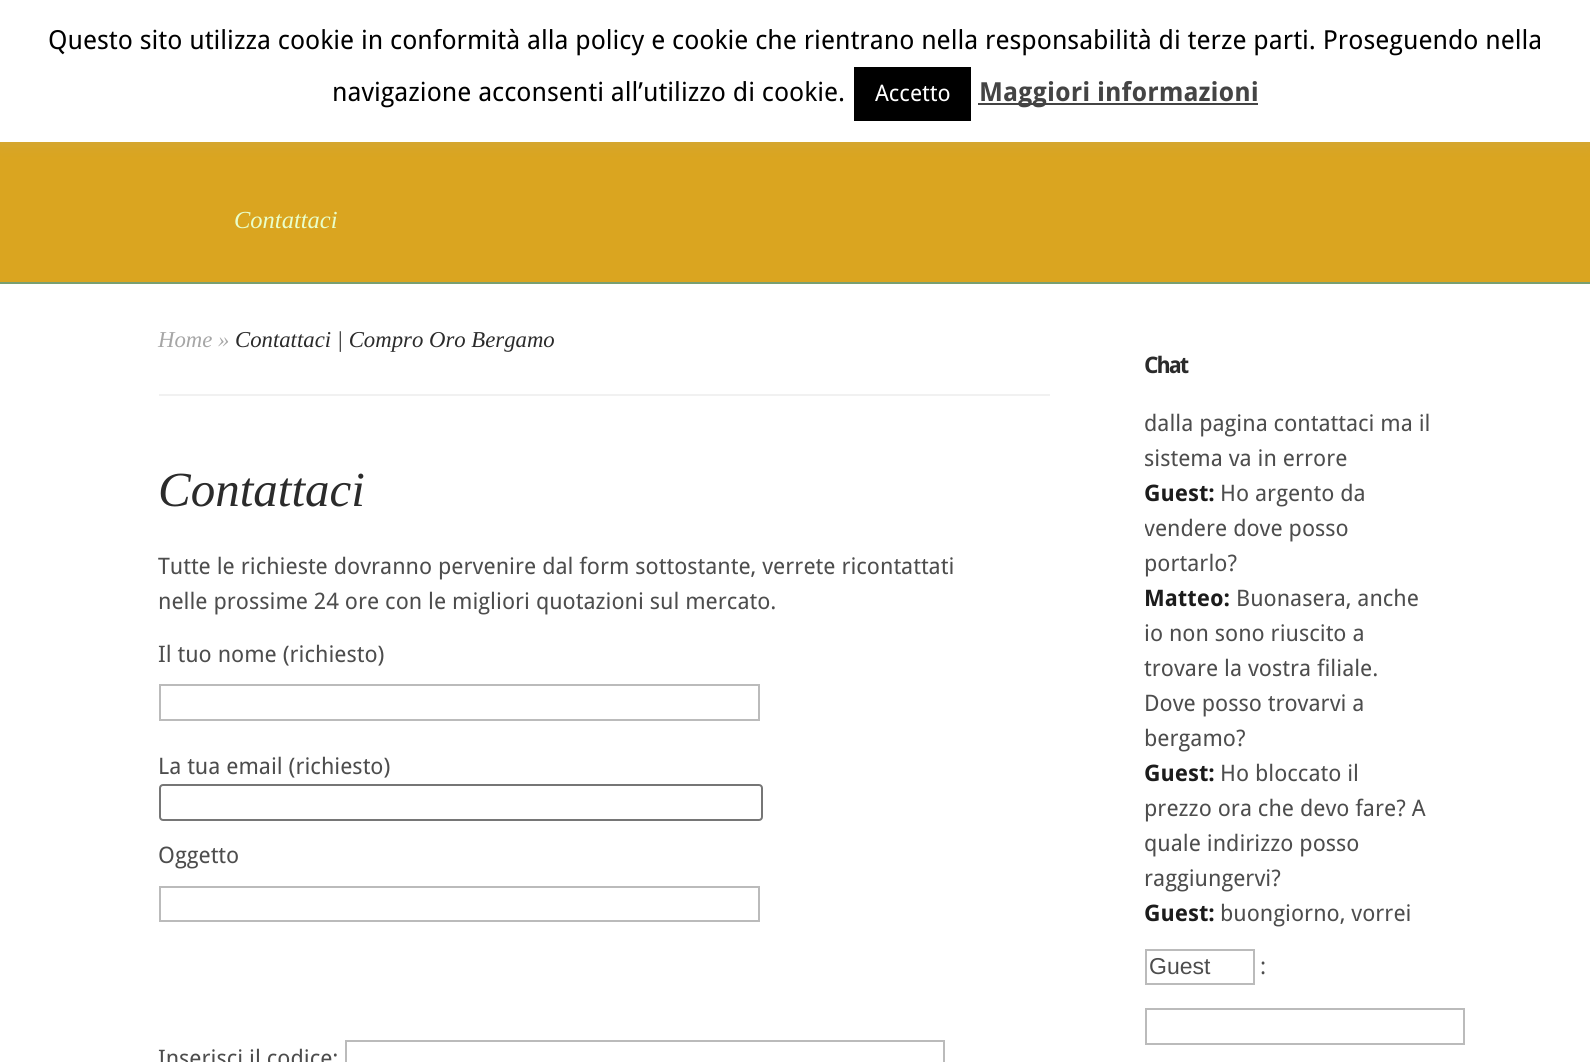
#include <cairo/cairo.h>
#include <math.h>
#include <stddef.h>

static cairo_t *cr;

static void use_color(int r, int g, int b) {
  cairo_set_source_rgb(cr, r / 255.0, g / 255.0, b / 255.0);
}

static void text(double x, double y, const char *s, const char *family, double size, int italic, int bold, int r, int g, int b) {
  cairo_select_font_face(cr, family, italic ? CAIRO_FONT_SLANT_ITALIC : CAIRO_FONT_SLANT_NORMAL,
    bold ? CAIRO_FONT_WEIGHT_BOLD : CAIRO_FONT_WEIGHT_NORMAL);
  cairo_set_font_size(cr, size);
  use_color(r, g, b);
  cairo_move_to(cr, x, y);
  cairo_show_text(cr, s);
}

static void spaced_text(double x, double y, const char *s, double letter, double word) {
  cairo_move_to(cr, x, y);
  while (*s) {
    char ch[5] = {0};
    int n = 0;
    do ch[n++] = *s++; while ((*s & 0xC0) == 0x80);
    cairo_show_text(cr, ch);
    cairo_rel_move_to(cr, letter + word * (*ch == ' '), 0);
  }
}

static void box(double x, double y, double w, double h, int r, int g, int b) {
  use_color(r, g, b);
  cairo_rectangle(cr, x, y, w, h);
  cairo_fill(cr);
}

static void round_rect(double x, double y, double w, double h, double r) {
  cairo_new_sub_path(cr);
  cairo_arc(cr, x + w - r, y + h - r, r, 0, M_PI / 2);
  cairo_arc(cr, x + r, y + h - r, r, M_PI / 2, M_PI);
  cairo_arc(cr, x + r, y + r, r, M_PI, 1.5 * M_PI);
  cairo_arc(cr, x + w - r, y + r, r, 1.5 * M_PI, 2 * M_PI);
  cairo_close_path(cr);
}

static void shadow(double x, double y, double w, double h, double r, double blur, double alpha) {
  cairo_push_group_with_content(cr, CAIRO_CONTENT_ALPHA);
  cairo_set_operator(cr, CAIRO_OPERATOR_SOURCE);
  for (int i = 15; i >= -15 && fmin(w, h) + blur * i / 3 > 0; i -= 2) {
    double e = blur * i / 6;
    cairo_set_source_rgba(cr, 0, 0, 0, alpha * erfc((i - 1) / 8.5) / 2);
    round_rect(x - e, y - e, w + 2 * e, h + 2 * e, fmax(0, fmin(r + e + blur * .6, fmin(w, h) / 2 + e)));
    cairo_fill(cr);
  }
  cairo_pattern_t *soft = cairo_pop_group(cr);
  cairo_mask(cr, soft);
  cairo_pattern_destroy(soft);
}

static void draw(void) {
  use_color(255, 255, 255);
  cairo_paint(cr);
  box(0, 142, 1590, 140, 218, 165, 32);
  use_color(172, 171, 171);
  shadow(0, -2, 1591, 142, 0, 9, 0.3);
  box(0, 0, 1590, 142, 255, 255, 255);
  box(854, 67, 117, 54, 0, 0, 0);
  box(978, 103, 280, 2, 68, 68, 68);
  box(0, 282, 1590, 2, 121, 159, 113);
  box(159, 394, 891, 2, 241, 241, 241);
  cairo_rectangle(cr, 160, 685, 599, 35);
  use_color(187, 187, 187);
  cairo_stroke(cr);
  round_rect(160, 785, 602, 35, 3);
  use_color(118, 118, 118);
  cairo_stroke(cr);
  cairo_rectangle(cr, 160, 887, 599, 34);
  use_color(187, 187, 187);
  cairo_stroke(cr);
  cairo_rectangle(cr, 346, 1041, 598, 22);
  cairo_stroke(cr);
  cairo_rectangle(cr, 1146, 950, 108, 34);
  cairo_stroke(cr);
  cairo_rectangle(cr, 1146, 1009, 318, 35);
  cairo_stroke(cr);
  text(48, 49, "Questo sito utilizza cookie in conformità alla policy e cookie che rientrano nella responsabilità di terze parti. Proseguendo nella", "Droid Sans", 26.25, 0, 0, 0, 0, 0);
  text(332, 101, "navigazione acconsenti all’utilizzo di cookie.", "Droid Sans", 26.25, 0, 0, 0, 0, 0);
  text(875, 101, "Accetto", "Droid Sans", 22.75, 0, 0, 255, 255, 255);
  text(979, 101, "Maggiori informazioni", "Droid Sans", 26.25, 0, 1, 68, 68, 68);
  text(234, 228, "Contattaci", "Liberation Serif", 24.5, 1, 0, 233, 255, 202);
  text(158, 347, "Home »", "Liberation Serif", 22.75, 1, 0, 166, 166, 166);
  text(235, 347, "Contattaci | Compro Oro Bergamo", "Liberation Serif", 22.75, 1, 0, 43, 43, 43);
  text(158, 506, "Contattaci", "Liberation Serif", 49, 1, 0, 43, 43, 43);
  text(158, 574, "Tutte le richieste dovranno pervenire dal form sottostante, verrete ricontattati", "Droid Sans", 22.75, 0, 0, 77, 77, 77);
  text(158, 609, "nelle prossime 24 ore con le migliori quotazioni sul mercato.", "Droid Sans", 22.75, 0, 0, 77, 77, 77);
  text(158, 662, "Il tuo nome (richiesto)", "Droid Sans", 22.75, 0, 0, 77, 77, 77);
  text(158, 774, "La tua email (richiesto)", "Droid Sans", 22.75, 0, 0, 77, 77, 77);
  text(158, 863, "Oggetto", "Droid Sans", 22.75, 0, 0, 77, 77, 77);
  text(158, 1066, "Inserisci il codice:", "Droid Sans", 22.75, 0, 0, 77, 77, 77);
  cairo_select_font_face(cr, "Droid Sans", CAIRO_FONT_SLANT_NORMAL, CAIRO_FONT_WEIGHT_BOLD);
  use_color(43, 43, 43);
  spaced_text(1144, 373, "Chat", -2, 0);
  text(1144, 431, "dalla pagina contattaci ma il", "Droid Sans", 22.75, 0, 0, 77, 77, 77);
  cairo_save(cr);
  cairo_rectangle(cr, 1145, 406, 288, 525);
  cairo_clip(cr);
  text(1144, 466, "sistema va in errore", "Droid Sans", 22.75, 0, 0, 77, 77, 77);
  cairo_restore(cr);
  text(1144, 501, "Guest:", "Droid Sans", 22.75, 0, 1, 28, 28, 28);
  text(1220, 501, "Ho argento da", "Droid Sans", 22.75, 0, 0, 77, 77, 77);
  cairo_save(cr);
  cairo_rectangle(cr, 1145, 406, 288, 525);
  cairo_clip(cr);
  text(1144, 536, "vendere dove posso", "Droid Sans", 22.75, 0, 0, 77, 77, 77);
  cairo_restore(cr);
  text(1144, 571, "portarlo?", "Droid Sans", 22.75, 0, 0, 77, 77, 77);
  text(1144, 606, "Matteo:", "Droid Sans", 22.75, 0, 1, 28, 28, 28);
  text(1236, 606, "Buonasera, anche", "Droid Sans", 22.75, 0, 0, 77, 77, 77);
  text(1144, 641, "io non sono riuscito a", "Droid Sans", 22.75, 0, 0, 77, 77, 77);
  text(1144, 676, "trovare la vostra filiale.", "Droid Sans", 22.75, 0, 0, 77, 77, 77);
  text(1144, 711, "Dove posso trovarvi a", "Droid Sans", 22.75, 0, 0, 77, 77, 77);
  text(1144, 746, "bergamo?", "Droid Sans", 22.75, 0, 0, 77, 77, 77);
  text(1144, 781, "Guest:", "Droid Sans", 22.75, 0, 1, 28, 28, 28);
  text(1220, 781, "Ho bloccato il", "Droid Sans", 22.75, 0, 0, 77, 77, 77);
  text(1144, 816, "prezzo ora che devo fare? A", "Droid Sans", 22.75, 0, 0, 77, 77, 77);
  text(1144, 851, "quale indirizzo posso", "Droid Sans", 22.75, 0, 0, 77, 77, 77);
  text(1144, 886, "raggiungervi?", "Droid Sans", 22.75, 0, 0, 77, 77, 77);
  text(1144, 921, "Guest:", "Droid Sans", 22.75, 0, 1, 28, 28, 28);
  text(1220, 921, "buongiorno, vorrei", "Droid Sans", 22.75, 0, 0, 77, 77, 77);
  text(1149, 974, "Guest", "Liberation Sans", 23, 0, 0, 77, 77, 77);
  text(1260, 974, ":", "Droid Sans", 22.75, 0, 0, 77, 77, 77);
}

int main(void) {
  cairo_surface_t *surface = cairo_image_surface_create(CAIRO_FORMAT_RGB24, 1590, 1062);
  cr = cairo_create(surface);
  cairo_font_options_t *options = cairo_font_options_create();
  cairo_font_options_set_hint_metrics(options, CAIRO_HINT_METRICS_OFF);
  cairo_font_options_set_hint_style(options, CAIRO_HINT_STYLE_NONE);
  cairo_set_font_options(cr, options);
  cairo_set_miter_limit(cr, 4);
  draw();
  cairo_surface_write_to_png(surface, "out.png");
  cairo_font_options_destroy(options);
  cairo_destroy(cr);
  cairo_surface_destroy(surface);
  return 0;
}
